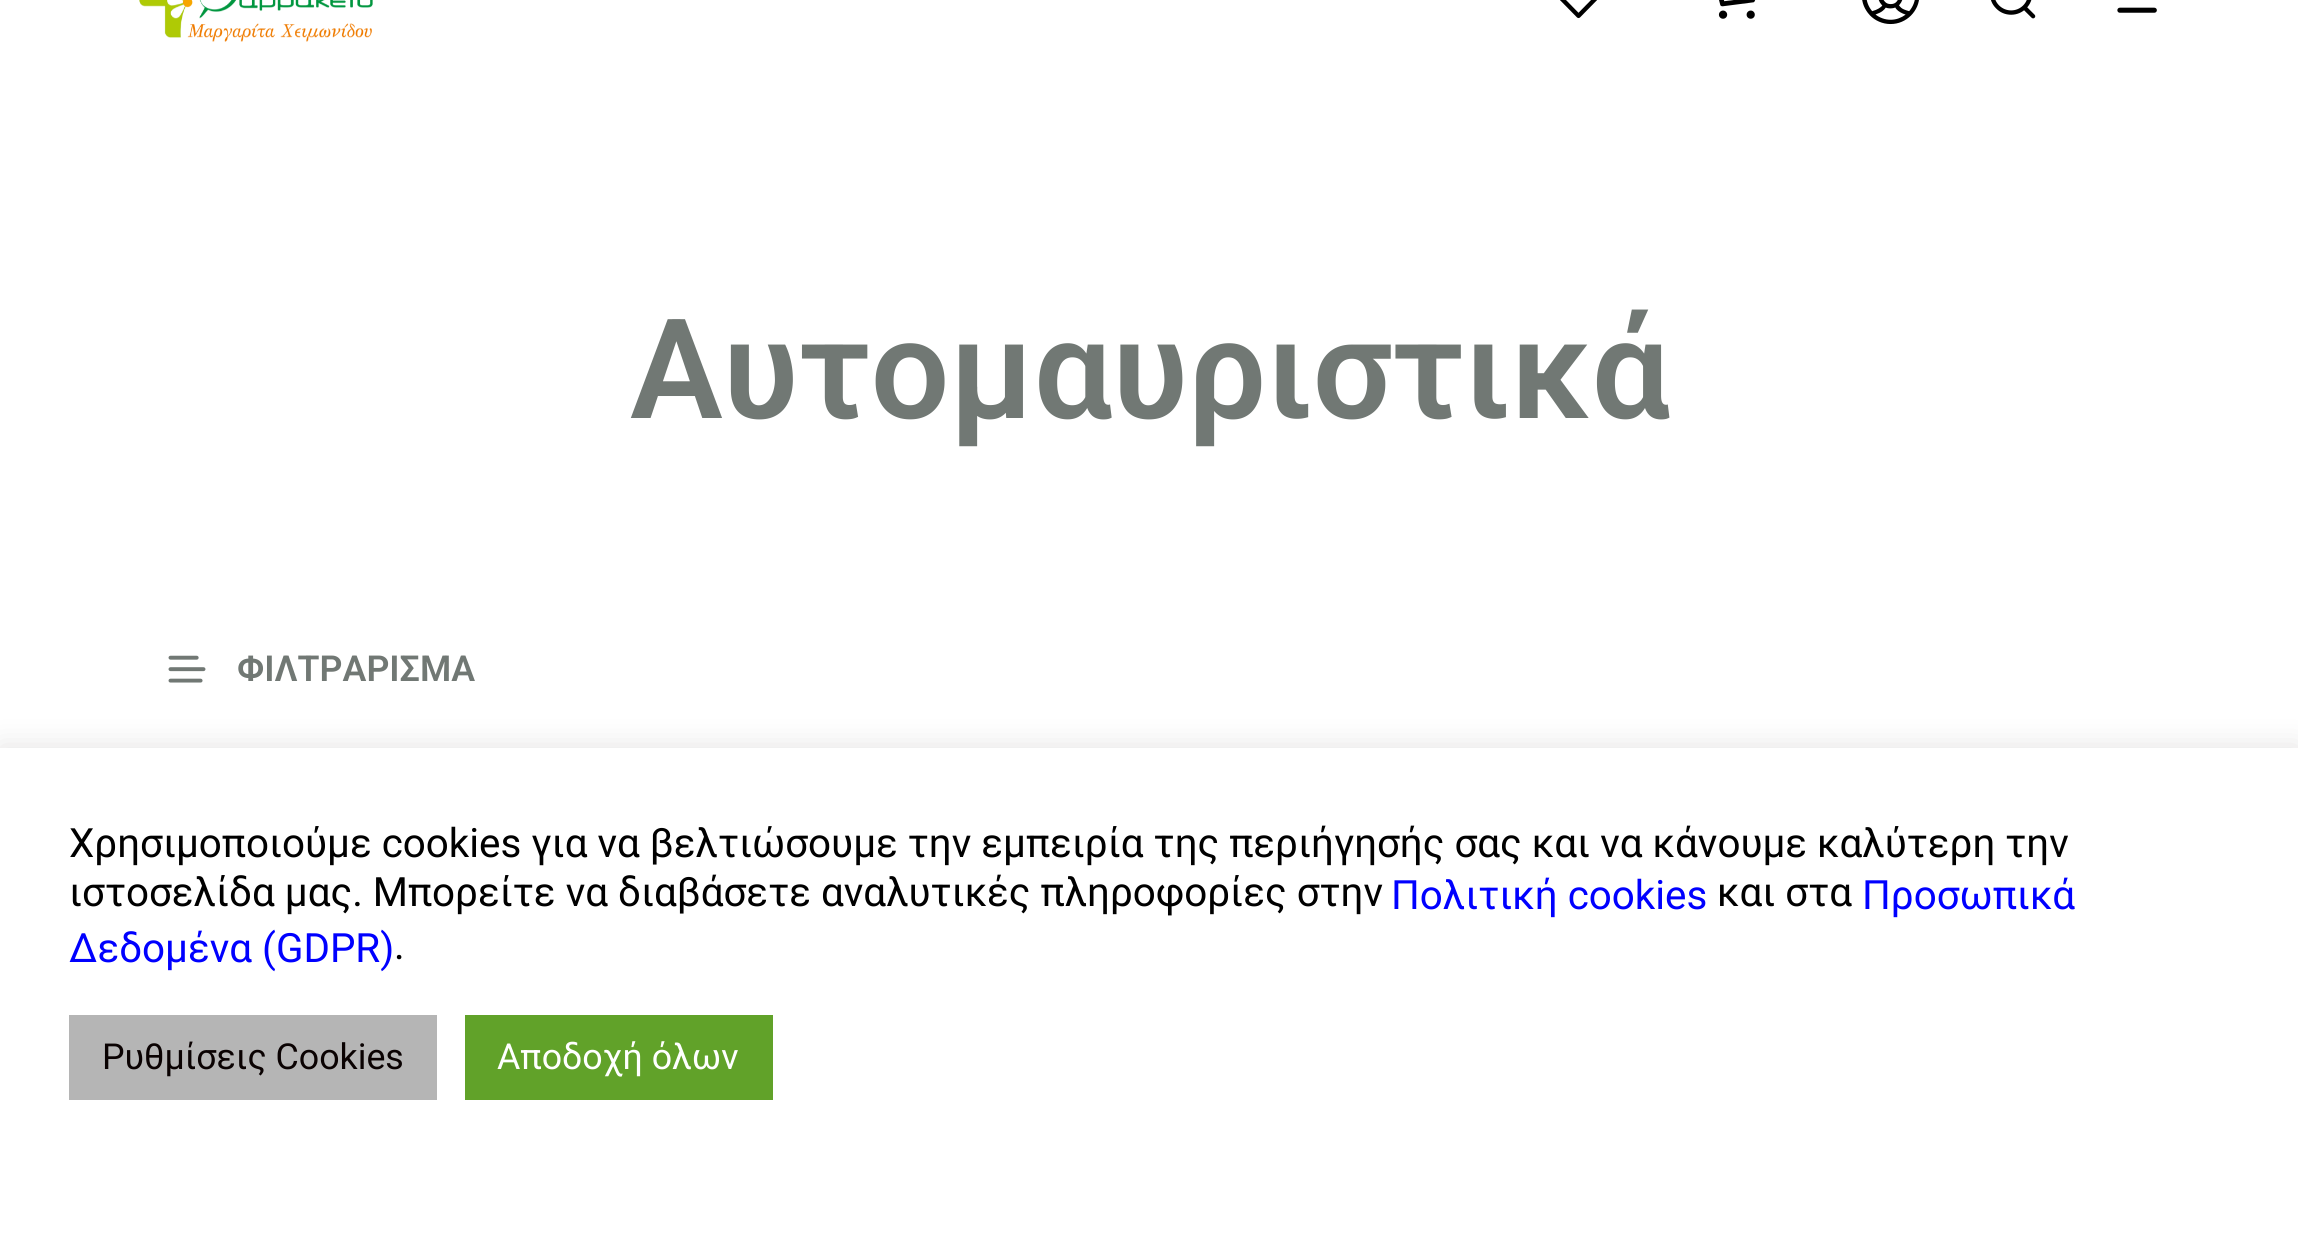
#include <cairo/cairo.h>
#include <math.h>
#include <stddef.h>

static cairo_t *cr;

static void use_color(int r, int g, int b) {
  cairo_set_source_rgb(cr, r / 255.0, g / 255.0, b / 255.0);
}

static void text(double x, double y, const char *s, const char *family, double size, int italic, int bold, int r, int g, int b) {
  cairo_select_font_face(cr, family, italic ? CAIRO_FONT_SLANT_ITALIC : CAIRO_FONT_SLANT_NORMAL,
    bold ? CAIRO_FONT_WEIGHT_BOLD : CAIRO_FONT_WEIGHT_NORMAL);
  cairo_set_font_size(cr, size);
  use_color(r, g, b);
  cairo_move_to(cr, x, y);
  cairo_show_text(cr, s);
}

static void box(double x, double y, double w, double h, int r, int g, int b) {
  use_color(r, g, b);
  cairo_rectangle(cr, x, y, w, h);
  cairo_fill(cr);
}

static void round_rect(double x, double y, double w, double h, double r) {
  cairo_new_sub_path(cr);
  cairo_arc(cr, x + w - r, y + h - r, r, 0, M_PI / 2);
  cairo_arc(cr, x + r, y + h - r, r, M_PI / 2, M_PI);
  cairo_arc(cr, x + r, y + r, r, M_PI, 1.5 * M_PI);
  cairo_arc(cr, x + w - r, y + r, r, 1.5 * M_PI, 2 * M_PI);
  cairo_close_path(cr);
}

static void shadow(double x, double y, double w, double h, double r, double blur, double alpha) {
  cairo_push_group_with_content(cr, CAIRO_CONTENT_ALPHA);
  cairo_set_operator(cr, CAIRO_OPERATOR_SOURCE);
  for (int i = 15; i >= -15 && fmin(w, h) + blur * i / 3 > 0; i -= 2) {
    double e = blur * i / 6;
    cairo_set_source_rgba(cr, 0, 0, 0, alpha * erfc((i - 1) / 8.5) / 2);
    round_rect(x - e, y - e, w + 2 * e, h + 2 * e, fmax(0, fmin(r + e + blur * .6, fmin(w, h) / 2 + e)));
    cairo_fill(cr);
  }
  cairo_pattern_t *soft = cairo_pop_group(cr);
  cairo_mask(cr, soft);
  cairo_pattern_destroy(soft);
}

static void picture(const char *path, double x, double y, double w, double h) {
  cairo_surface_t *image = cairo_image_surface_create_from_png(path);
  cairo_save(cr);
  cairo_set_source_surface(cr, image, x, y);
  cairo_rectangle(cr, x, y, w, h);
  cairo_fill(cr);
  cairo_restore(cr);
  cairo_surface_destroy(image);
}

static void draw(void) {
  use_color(255, 255, 255);
  cairo_paint(cr);
  picture("img_01.png", 139, 0, 234, 42);
  picture("img_02.png", 1560, 0, 37, 19);
  picture("img_03.png", 1718, 0, 38, 19);
  picture("img_04.png", 1862, 0, 57, 25);
  picture("img_05.png", 1991, 0, 45, 19);
  picture("img_06.png", 2117, 7, 40, 6);
  picture("img_07.png", 168, 655, 38, 28);
  use_color(172, 171, 171);
  shadow(0, 745, 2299, 498, 0, 14, 0.3);
  box(0, 748, 2298, 497, 255, 255, 255);
  box(69, 1015, 368, 85, 181, 181, 181);
  box(465, 1015, 308, 85, 97, 162, 41);
  text(630, 418, "Αυτομαυριστικά", "Roboto SemiBold", 139, 0, 0, 113, 120, 116);
  text(237, 681, "ΦΙΛΤΡΑΡΙΣΜΑ", "Roboto SemiBold", 35.75, 0, 0, 113, 120, 116);
  text(69, 857, "Χρησιμοποιούμε cookies για να βελτιώσουμε την εμπειρία της περιήγησής σας και να κάνουμε καλύτερη την", "Roboto", 40.35, 0, 0, 0, 0, 0);
  text(69, 906, "ιστοσελίδα μας. Μπορείτε να διαβάσετε αναλυτικές πληροφορίες στην", "Roboto", 40.35, 0, 0, 0, 0, 0);
  text(1391, 909, "Πολιτική cookies", "Roboto", 40.35, 0, 0, 0, 0, 255);
  text(1717, 906, "και στα", "Roboto", 40.35, 0, 0, 0, 0, 0);
  text(1862, 909, "Προσωπικά", "Roboto", 40.35, 0, 0, 0, 0, 255);
  text(69, 962, "Δεδομένα (GDPR)", "Roboto", 40.35, 0, 0, 0, 0, 255);
  text(394, 959, ".", "Roboto", 40.35, 0, 0, 0, 0, 0);
  text(102, 1069, "Ρυθμίσεις Cookies", "Roboto", 35.75, 0, 0, 10, 2, 2);
  text(497, 1069, "Αποδοχή όλων", "Roboto", 35.75, 0, 0, 255, 255, 255);
}

int main(void) {
  cairo_surface_t *surface = cairo_image_surface_create(CAIRO_FORMAT_RGB24, 2298, 1245);
  cr = cairo_create(surface);
  cairo_font_options_t *options = cairo_font_options_create();
  cairo_font_options_set_hint_metrics(options, CAIRO_HINT_METRICS_OFF);
  cairo_font_options_set_hint_style(options, CAIRO_HINT_STYLE_NONE);
  cairo_set_font_options(cr, options);
  cairo_set_miter_limit(cr, 4);
  draw();
  cairo_surface_write_to_png(surface, "out.png");
  cairo_font_options_destroy(options);
  cairo_destroy(cr);
  cairo_surface_destroy(surface);
  return 0;
}
